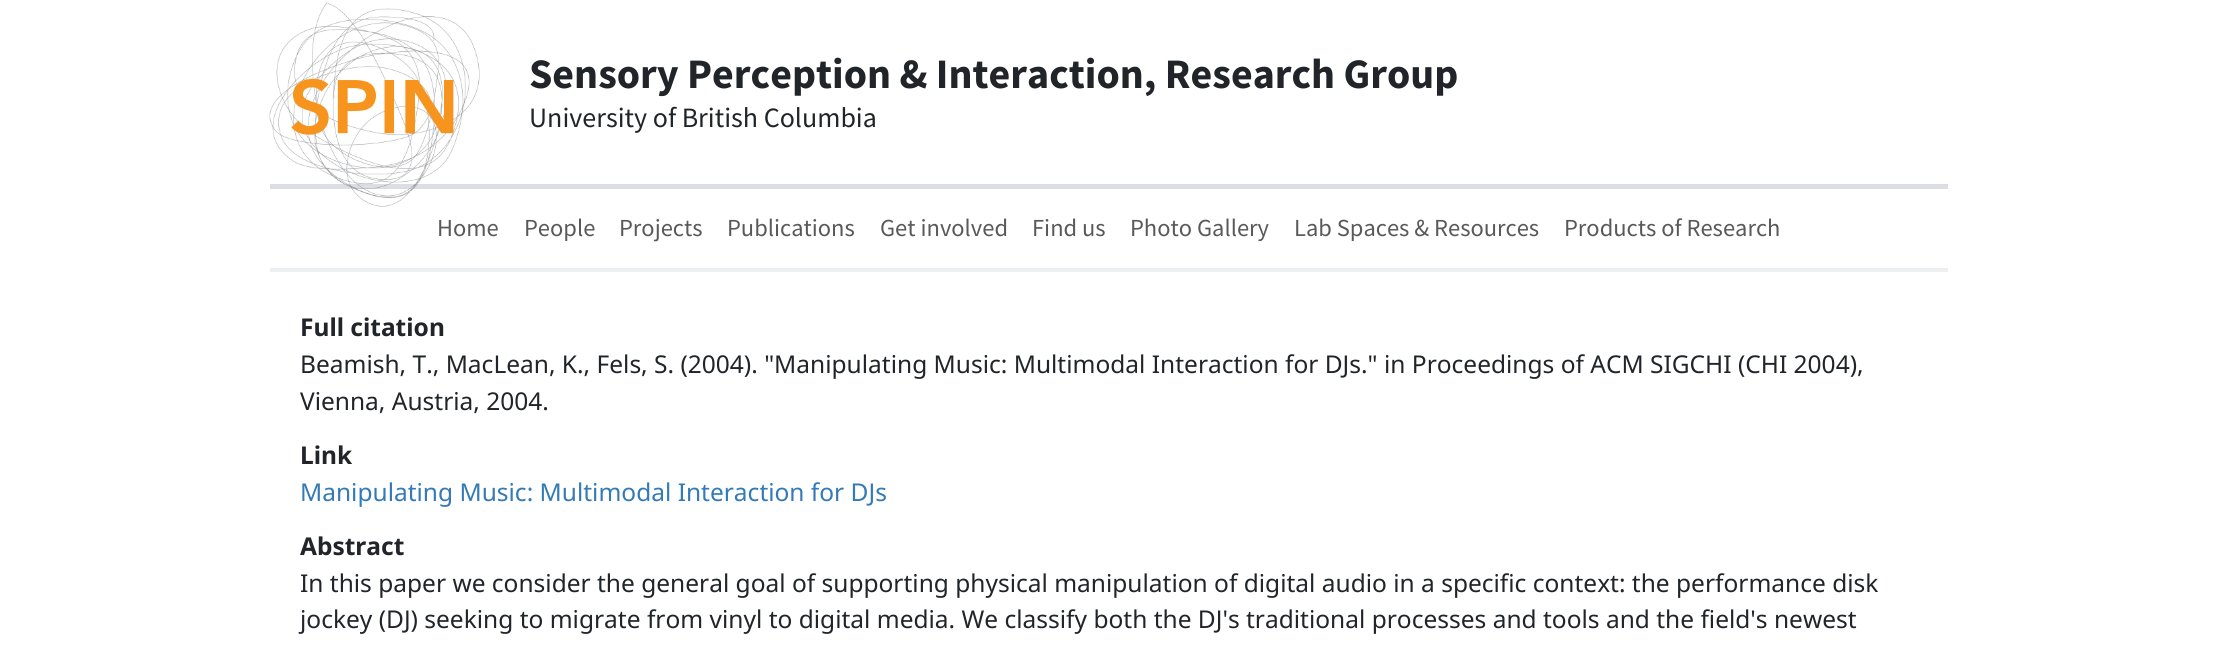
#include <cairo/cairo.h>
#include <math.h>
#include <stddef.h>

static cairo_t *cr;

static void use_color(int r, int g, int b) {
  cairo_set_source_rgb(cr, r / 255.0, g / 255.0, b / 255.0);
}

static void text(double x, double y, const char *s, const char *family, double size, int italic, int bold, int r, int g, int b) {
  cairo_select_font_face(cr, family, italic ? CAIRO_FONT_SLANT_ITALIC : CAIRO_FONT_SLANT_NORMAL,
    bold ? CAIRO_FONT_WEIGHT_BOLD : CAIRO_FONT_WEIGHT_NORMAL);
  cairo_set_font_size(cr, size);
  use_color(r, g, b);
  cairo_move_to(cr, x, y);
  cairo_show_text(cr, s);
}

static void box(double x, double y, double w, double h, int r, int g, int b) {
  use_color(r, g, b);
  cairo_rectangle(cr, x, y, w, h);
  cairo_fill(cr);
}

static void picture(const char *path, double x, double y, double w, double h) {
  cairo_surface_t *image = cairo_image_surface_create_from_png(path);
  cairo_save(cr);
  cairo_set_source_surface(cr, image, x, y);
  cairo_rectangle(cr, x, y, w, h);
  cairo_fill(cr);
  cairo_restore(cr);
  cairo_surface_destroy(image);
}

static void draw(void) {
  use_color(255, 255, 255);
  cairo_paint(cr);
  picture("img_01.png", 269, 2, 211, 205);
  cairo_set_source_rgba(cr, 0.325, 0.369, 0.463, 0.2);
  cairo_rectangle(cr, 270, 184, 1678, 5);
  cairo_fill(cr);
  box(270, 268, 1678, 4, 238, 239, 241);
  text(529, 88, "Sensory Perception & Interaction, Research Group", "Source Sans Pro", 42, 0, 1, 33, 37, 41);
  text(529, 127, "University of British Columbia", "Source Sans Pro", 28, 0, 0, 33, 37, 41);
  text(437, 236, "Home", "Source Sans Pro", 24.5, 0, 0, 89, 89, 89);
  text(524, 236, "People", "Source Sans Pro", 24.5, 0, 0, 89, 89, 89);
  text(619, 236, "Projects", "Source Sans Pro", 24.5, 0, 0, 89, 89, 89);
  text(727, 236, "Publications", "Source Sans Pro", 24.5, 0, 0, 89, 89, 89);
  text(880, 236, "Get involved", "Source Sans Pro", 24.5, 0, 0, 89, 89, 89);
  text(1032, 236, "Find us", "Source Sans Pro", 24.5, 0, 0, 89, 89, 89);
  text(1130, 236, "Photo Gallery", "Source Sans Pro", 24.5, 0, 0, 89, 89, 89);
  text(1294, 236, "Lab Spaces & Resources", "Source Sans Pro", 24.5, 0, 0, 89, 89, 89);
  text(1564, 236, "Products of Research", "Source Sans Pro", 24.5, 0, 0, 89, 89, 89);
  text(300, 336, "Full citation", "Noto Sans", 24.5, 0, 1, 33, 37, 41);
  text(300, 373, "Beamish, T., MacLean, K., Fels, S. (2004). \"Manipulating Music: Multimodal Interaction for DJs.\" in Proceedings of ACM SIGCHI (CHI 2004),", "Noto Sans", 24.5, 0, 0, 33, 37, 41);
  text(300, 410, "Vienna, Austria, 2004.", "Noto Sans", 24.5, 0, 0, 33, 37, 41);
  text(300, 464, "Link", "Noto Sans", 24.5, 0, 1, 33, 37, 41);
  text(300, 501, "Manipulating Music: Multimodal Interaction for DJs", "Noto Sans", 24.5, 0, 0, 51, 122, 183);
  text(300, 555, "Abstract", "Noto Sans", 24.5, 0, 1, 33, 37, 41);
  text(300, 592, "In this paper we consider the general goal of supporting physical manipulation of digital audio in a specific context: the performance disk", "Noto Sans", 24.5, 0, 0, 33, 37, 41);
  text(300, 628, "jockey (DJ) seeking to migrate from vinyl to digital media. We classify both the DJ's traditional processes and tools and the field's newest", "Noto Sans", 24.5, 0, 0, 33, 37, 41);
}

int main(void) {
  cairo_surface_t *surface = cairo_image_surface_create(CAIRO_FORMAT_RGB24, 2216, 647);
  cr = cairo_create(surface);
  cairo_font_options_t *options = cairo_font_options_create();
  cairo_font_options_set_hint_metrics(options, CAIRO_HINT_METRICS_OFF);
  cairo_font_options_set_hint_style(options, CAIRO_HINT_STYLE_NONE);
  cairo_set_font_options(cr, options);
  cairo_set_miter_limit(cr, 4);
  draw();
  cairo_surface_write_to_png(surface, "out.png");
  cairo_font_options_destroy(options);
  cairo_destroy(cr);
  cairo_surface_destroy(surface);
  return 0;
}
